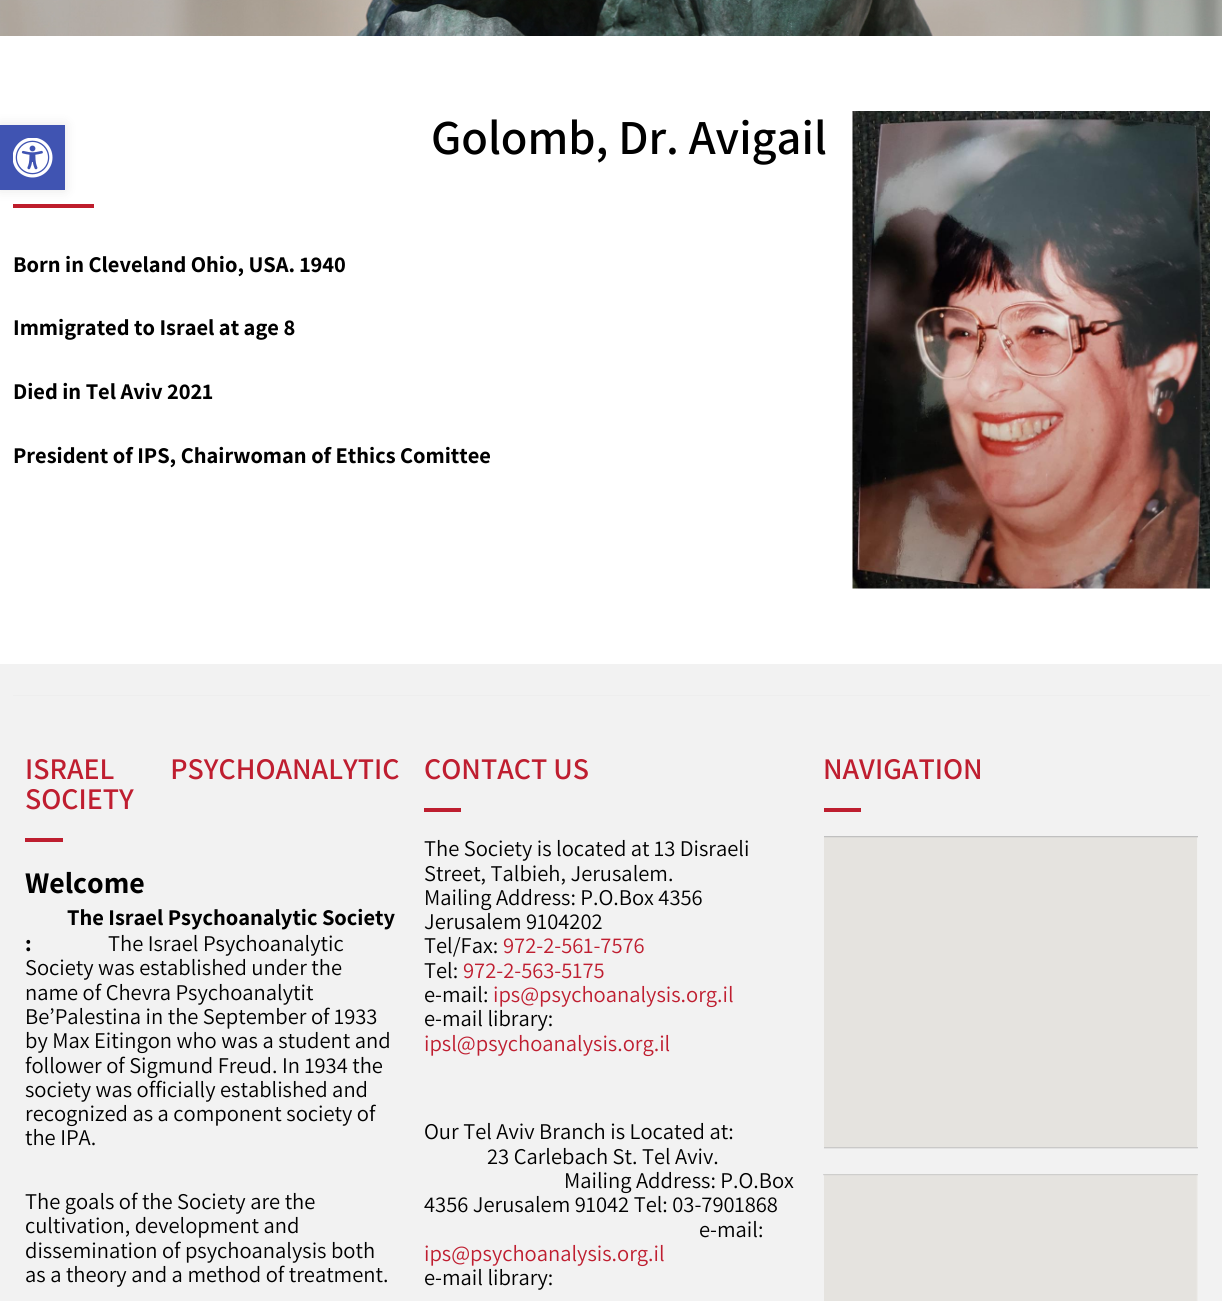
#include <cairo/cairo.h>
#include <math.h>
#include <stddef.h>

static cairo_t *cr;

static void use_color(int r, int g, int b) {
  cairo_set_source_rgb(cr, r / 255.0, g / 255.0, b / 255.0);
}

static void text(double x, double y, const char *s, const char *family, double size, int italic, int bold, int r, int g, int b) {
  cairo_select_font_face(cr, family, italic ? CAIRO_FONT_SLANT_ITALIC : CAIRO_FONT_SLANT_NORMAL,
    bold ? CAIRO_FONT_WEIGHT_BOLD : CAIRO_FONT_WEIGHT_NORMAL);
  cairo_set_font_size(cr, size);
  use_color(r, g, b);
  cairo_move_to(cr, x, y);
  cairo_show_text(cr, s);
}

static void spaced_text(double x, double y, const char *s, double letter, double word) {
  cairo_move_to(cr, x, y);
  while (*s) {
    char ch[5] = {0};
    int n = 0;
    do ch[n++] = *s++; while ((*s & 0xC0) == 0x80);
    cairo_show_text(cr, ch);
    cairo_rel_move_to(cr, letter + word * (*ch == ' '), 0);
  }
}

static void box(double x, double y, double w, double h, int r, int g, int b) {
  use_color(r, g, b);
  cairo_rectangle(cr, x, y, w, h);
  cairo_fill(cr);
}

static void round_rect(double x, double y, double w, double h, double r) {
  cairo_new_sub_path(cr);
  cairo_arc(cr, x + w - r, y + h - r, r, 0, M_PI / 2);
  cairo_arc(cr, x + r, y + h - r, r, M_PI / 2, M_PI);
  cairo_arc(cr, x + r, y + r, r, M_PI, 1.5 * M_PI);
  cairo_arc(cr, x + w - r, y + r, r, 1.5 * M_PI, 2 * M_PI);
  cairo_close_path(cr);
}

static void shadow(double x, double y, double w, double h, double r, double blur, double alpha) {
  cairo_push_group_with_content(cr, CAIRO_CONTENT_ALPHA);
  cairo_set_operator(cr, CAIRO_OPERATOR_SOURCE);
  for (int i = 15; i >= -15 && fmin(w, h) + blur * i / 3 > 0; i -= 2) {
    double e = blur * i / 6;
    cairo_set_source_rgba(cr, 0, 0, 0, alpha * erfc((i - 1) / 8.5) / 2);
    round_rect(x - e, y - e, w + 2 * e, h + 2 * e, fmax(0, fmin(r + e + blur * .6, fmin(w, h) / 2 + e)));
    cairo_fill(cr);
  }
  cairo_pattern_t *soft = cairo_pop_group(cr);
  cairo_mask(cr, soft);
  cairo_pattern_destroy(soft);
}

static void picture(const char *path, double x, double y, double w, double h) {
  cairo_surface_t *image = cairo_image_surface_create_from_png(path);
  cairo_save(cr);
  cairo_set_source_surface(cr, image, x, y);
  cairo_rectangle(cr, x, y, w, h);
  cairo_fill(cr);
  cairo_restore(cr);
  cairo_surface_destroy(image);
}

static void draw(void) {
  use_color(255, 255, 255);
  cairo_paint(cr);
  box(13, 204, 81, 4, 190, 29, 44);
  use_color(0, 0, 0);
  shadow(0, 125, 65, 65, 0, 6, 0.1);
  box(0, 125, 65, 65, 64, 84, 178);
  picture("img_01.png", 13, 138, 40, 40);
  picture("img_02.png", 0, 0, 1222, 36);
  picture("img_03.png", 852, 111, 358, 478);
  box(0, 664, 1222, 637, 242, 242, 242);
  box(13, 695, 1197, 1, 238, 238, 238);
  box(25, 838, 38, 4, 190, 30, 47);
  box(424, 808, 37, 4, 190, 30, 47);
  box(824, 808, 37, 4, 190, 30, 47);
  picture("img_04.png", 824, 836, 374, 313);
  picture("img_05.png", 823, 1174, 375, 127);
  text(431, 154, "Golomb, Dr. Avigail", "Assistant SemiBold", 48.75, 0, 0, 0, 0, 0);
  text(13, 272, "Born in Cleveland Ohio, USA. 1940", "Assistant", 22.5, 0, 1, 0, 0, 0);
  text(13, 335, "Immigrated to Israel at age 8", "Assistant", 22.5, 0, 1, 0, 0, 0);
  text(13, 399, "Died in Tel Aviv 2021", "Assistant", 22.5, 0, 1, 0, 0, 0);
  text(13, 463, "President of IPS, Chairwoman of Ethics Comittee", "Assistant", 22.5, 0, 1, 0, 0, 0);
  cairo_select_font_face(cr, "Assistant SemiBold", CAIRO_FONT_SLANT_NORMAL, CAIRO_FONT_WEIGHT_NORMAL);
  cairo_set_font_size(cr, 30);
  use_color(191, 30, 48);
  spaced_text(25, 779, "ISRAEL PSYCHOANALYTIC", 0, 50);
  text(25, 809, "SOCIETY", "Assistant SemiBold", 30, 0, 0, 191, 30, 48);
  text(25, 893, "Welcome", "Assistant", 30, 0, 1, 0, 0, 0);
  text(67, 925, "The Israel Psychoanalytic Society", "Assistant", 22.5, 0, 1, 0, 0, 0);
  text(25, 951, ":", "Assistant", 22.5, 0, 1, 0, 0, 0);
  text(108, 951, "The Israel Psychoanalytic", "Assistant", 22.5, 0, 0, 0, 0, 0);
  text(25, 975, "Society was established under the", "Assistant", 22.5, 0, 0, 0, 0, 0);
  text(25, 1000, "name of Chevra Psychoanalytit", "Assistant", 22.5, 0, 0, 0, 0, 0);
  text(25, 1024, "Be’Palestina in the September of 1933", "Assistant", 22.5, 0, 0, 0, 0, 0);
  text(25, 1048, "by Max Eitingon who was a student and", "Assistant", 22.5, 0, 0, 0, 0, 0);
  text(25, 1073, "follower of Sigmund Freud. In 1934 the", "Assistant", 22.5, 0, 0, 0, 0, 0);
  text(25, 1097, "society was officially established and", "Assistant", 22.5, 0, 0, 0, 0, 0);
  text(25, 1121, "recognized as a component society of", "Assistant", 22.5, 0, 0, 0, 0, 0);
  text(25, 1145, "the IPA.", "Assistant", 22.5, 0, 0, 0, 0, 0);
  text(25, 1209, "The goals of the Society are the", "Assistant", 22.5, 0, 0, 0, 0, 0);
  text(25, 1233, "cultivation, development and", "Assistant", 22.5, 0, 0, 0, 0, 0);
  text(25, 1258, "dissemination of psychoanalysis both", "Assistant", 22.5, 0, 0, 0, 0, 0);
  text(25, 1282, "as a theory and a method of treatment.", "Assistant", 22.5, 0, 0, 0, 0, 0);
  text(424, 779, "CONTACT US", "Assistant SemiBold", 30, 0, 0, 191, 30, 48);
  text(424, 856, "The Society is located at 13 Disraeli", "Assistant", 22.5, 0, 0, 0, 0, 0);
  text(424, 881, "Street, Talbieh, Jerusalem.", "Assistant", 22.5, 0, 0, 0, 0, 0);
  text(424, 905, "Mailing Address: P.O.Box 4356", "Assistant", 22.5, 0, 0, 0, 0, 0);
  text(424, 929, "Jerusalem 9104202", "Assistant", 22.5, 0, 0, 0, 0, 0);
  text(424, 953, "Tel/Fax:", "Assistant", 22.5, 0, 0, 0, 0, 0);
  text(503, 953, "972-2-561-7576", "Assistant", 22.5, 0, 0, 191, 30, 48);
  text(424, 978, "Tel:", "Assistant", 22.5, 0, 0, 0, 0, 0);
  text(463, 978, "972-2-563-5175", "Assistant", 22.5, 0, 0, 191, 30, 48);
  text(424, 1002, "e-mail:", "Assistant", 22.5, 0, 0, 0, 0, 0);
  text(493, 1002, "ips@psychoanalysis.org.il", "Assistant", 22.5, 0, 0, 191, 30, 48);
  text(424, 1026, "e-mail library:", "Assistant", 22.5, 0, 0, 0, 0, 0);
  text(424, 1051, "ipsl@psychoanalysis.org.il", "Assistant", 22.5, 0, 0, 191, 30, 48);
  text(424, 1139, "Our Tel Aviv Branch is Located at:", "Assistant", 22.5, 0, 0, 0, 0, 0);
  text(487, 1164, "23 Carlebach St. Tel Aviv.", "Assistant", 22.5, 0, 0, 0, 0, 0);
  text(564, 1188, "Mailing Address: P.O.Box", "Assistant", 22.5, 0, 0, 0, 0, 0);
  text(424, 1212, "4356 Jerusalem 91042 Tel: 03-7901868", "Assistant", 22.5, 0, 0, 0, 0, 0);
  text(699, 1237, "e-mail:", "Assistant", 22.5, 0, 0, 0, 0, 0);
  text(424, 1261, "ips@psychoanalysis.org.il", "Assistant", 22.5, 0, 0, 191, 30, 48);
  text(424, 1285, "e-mail library:", "Assistant", 22.5, 0, 0, 0, 0, 0);
  text(823, 779, "NAVIGATION", "Assistant SemiBold", 30, 0, 0, 191, 30, 48);
}

int main(void) {
  cairo_surface_t *surface = cairo_image_surface_create(CAIRO_FORMAT_RGB24, 1222, 1301);
  cr = cairo_create(surface);
  cairo_font_options_t *options = cairo_font_options_create();
  cairo_font_options_set_hint_metrics(options, CAIRO_HINT_METRICS_OFF);
  cairo_font_options_set_hint_style(options, CAIRO_HINT_STYLE_NONE);
  cairo_set_font_options(cr, options);
  cairo_set_miter_limit(cr, 4);
  draw();
  cairo_surface_write_to_png(surface, "out.png");
  cairo_font_options_destroy(options);
  cairo_destroy(cr);
  cairo_surface_destroy(surface);
  return 0;
}
